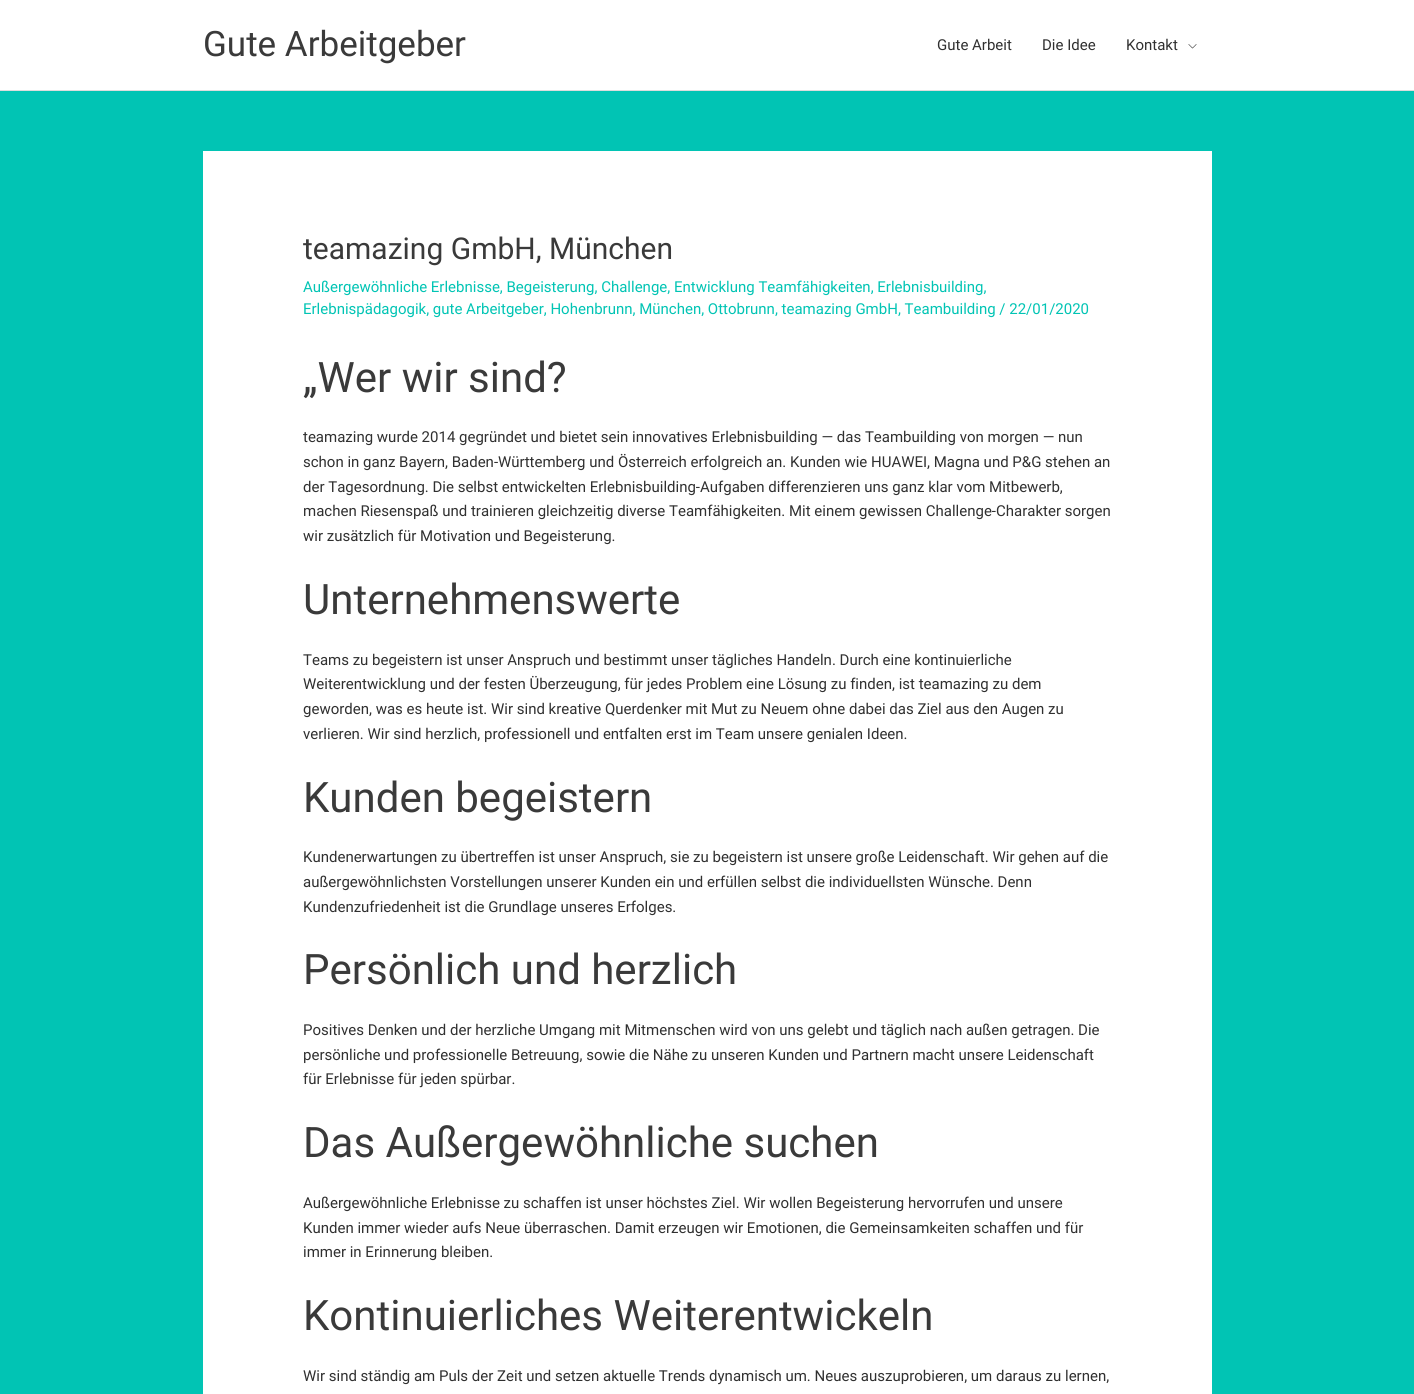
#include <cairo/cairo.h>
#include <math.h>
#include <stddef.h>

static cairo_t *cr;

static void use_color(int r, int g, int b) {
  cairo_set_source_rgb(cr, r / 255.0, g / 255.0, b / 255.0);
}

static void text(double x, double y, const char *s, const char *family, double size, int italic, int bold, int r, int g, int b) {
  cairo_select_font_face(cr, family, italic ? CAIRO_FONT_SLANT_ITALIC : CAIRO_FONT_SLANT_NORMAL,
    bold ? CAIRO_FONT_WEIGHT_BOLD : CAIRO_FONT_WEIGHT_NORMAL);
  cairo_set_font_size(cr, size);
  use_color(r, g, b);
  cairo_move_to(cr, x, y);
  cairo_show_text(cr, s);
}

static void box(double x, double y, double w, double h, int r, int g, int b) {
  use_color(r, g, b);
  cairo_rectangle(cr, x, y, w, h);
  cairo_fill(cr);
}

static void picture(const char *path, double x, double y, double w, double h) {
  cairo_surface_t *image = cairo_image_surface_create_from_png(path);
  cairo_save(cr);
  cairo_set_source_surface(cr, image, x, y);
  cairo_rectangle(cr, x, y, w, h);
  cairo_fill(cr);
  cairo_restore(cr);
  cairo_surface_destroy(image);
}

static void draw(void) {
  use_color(1, 196, 180);
  cairo_paint(cr);
  box(0, 0, 1414, 90, 255, 255, 255);
  box(0, 90, 1414, 1, 221, 221, 221);
  picture("img_01.png", 1188, 44, 9, 5);
  box(203, 151, 1009, 1243, 255, 255, 255);
  text(203, 56, "Gute Arbeitgeber", "Roboto", 35, 0, 0, 58, 58, 58);
  text(937, 50, "Gute Arbeit", "Roboto", 15, 0, 0, 48, 48, 48);
  text(1042, 50, "Die Idee", "Roboto", 15, 0, 0, 48, 48, 48);
  text(1126, 50, "Kontakt", "Roboto", 15, 0, 0, 48, 48, 48);
  text(303, 259, "teamazing GmbH, München", "Roboto", 30, 0, 0, 58, 58, 58);
  text(303, 292, "Außergewöhnliche Erlebnisse, Begeisterung, Challenge, Entwicklung Teamfähigkeiten, Erlebnisbuilding,", "Roboto", 15, 0, 0, 1, 196, 180);
  text(303, 314, "Erlebnispädagogik, gute Arbeitgeber, Hohenbrunn, München, Ottobrunn, teamazing GmbH, Teambuilding / 22/01/2020", "Roboto", 15, 0, 0, 1, 196, 180);
  text(303, 392, "„Wer wir sind?", "Roboto", 42, 0, 0, 58, 58, 58);
  text(303, 442, "teamazing wurde 2014 gegründet und bietet sein innovatives Erlebnisbuilding — das Teambuilding von morgen — nun", "Roboto", 15, 0, 0, 48, 48, 48);
  text(303, 467, "schon in ganz Bayern, Baden-Württemberg und Österreich erfolgreich an. Kunden wie HUAWEI, Magna und P&G stehen an", "Roboto", 15, 0, 0, 48, 48, 48);
  text(303, 492, "der Tagesordnung. Die selbst entwickelten Erlebnisbuilding-Aufgaben differenzieren uns ganz klar vom Mitbewerb,", "Roboto", 15, 0, 0, 48, 48, 48);
  text(303, 516, "machen Riesenspaß und trainieren gleichzeitig diverse Teamfähigkeiten. Mit einem gewissen Challenge-Charakter sorgen", "Roboto", 15, 0, 0, 48, 48, 48);
  text(303, 541, "wir zusätzlich für Motivation und Begeisterung.", "Roboto", 15, 0, 0, 48, 48, 48);
  text(303, 614, "Unternehmenswerte", "Roboto", 42, 0, 0, 58, 58, 58);
  text(303, 665, "Teams zu begeistern ist unser Anspruch und bestimmt unser tägliches Handeln. Durch eine kontinuierliche", "Roboto", 15, 0, 0, 48, 48, 48);
  text(303, 689, "Weiterentwicklung und der festen Überzeugung, für jedes Problem eine Lösung zu finden, ist teamazing zu dem", "Roboto", 15, 0, 0, 48, 48, 48);
  text(303, 714, "geworden, was es heute ist. Wir sind kreative Querdenker mit Mut zu Neuem ohne dabei das Ziel aus den Augen zu", "Roboto", 15, 0, 0, 48, 48, 48);
  text(303, 739, "verlieren. Wir sind herzlich, professionell und entfalten erst im Team unsere genialen Ideen.", "Roboto", 15, 0, 0, 48, 48, 48);
  text(303, 812, "Kunden begeistern", "Roboto", 42, 0, 0, 58, 58, 58);
  text(303, 862, "Kundenerwartungen zu übertreffen ist unser Anspruch, sie zu begeistern ist unsere große Leidenschaft. Wir gehen auf die", "Roboto", 15, 0, 0, 48, 48, 48);
  text(303, 887, "außergewöhnlichsten Vorstellungen unserer Kunden ein und erfüllen selbst die individuellsten Wünsche. Denn", "Roboto", 15, 0, 0, 48, 48, 48);
  text(303, 912, "Kundenzufriedenheit ist die Grundlage unseres Erfolges.", "Roboto", 15, 0, 0, 48, 48, 48);
  text(303, 984, "Persönlich und herzlich", "Roboto", 42, 0, 0, 58, 58, 58);
  text(303, 1035, "Positives Denken und der herzliche Umgang mit Mitmenschen wird von uns gelebt und täglich nach außen getragen. Die", "Roboto", 15, 0, 0, 48, 48, 48);
  text(303, 1060, "persönliche und professionelle Betreuung, sowie die Nähe zu unseren Kunden und Partnern macht unsere Leidenschaft", "Roboto", 15, 0, 0, 48, 48, 48);
  text(303, 1084, "für Erlebnisse für jeden spürbar.", "Roboto", 15, 0, 0, 48, 48, 48);
  text(303, 1157, "Das Außergewöhnliche suchen", "Roboto", 42, 0, 0, 58, 58, 58);
  text(303, 1208, "Außergewöhnliche Erlebnisse zu schaffen ist unser höchstes Ziel. Wir wollen Begeisterung hervorrufen und unsere", "Roboto", 15, 0, 0, 48, 48, 48);
  text(303, 1233, "Kunden immer wieder aufs Neue überraschen. Damit erzeugen wir Emotionen, die Gemeinsamkeiten schaffen und für", "Roboto", 15, 0, 0, 48, 48, 48);
  text(303, 1257, "immer in Erinnerung bleiben.", "Roboto", 15, 0, 0, 48, 48, 48);
  text(303, 1330, "Kontinuierliches Weiterentwickeln", "Roboto", 42, 0, 0, 58, 58, 58);
  text(303, 1381, "Wir sind ständig am Puls der Zeit und setzen aktuelle Trends dynamisch um. Neues auszuprobieren, um daraus zu lernen,", "Roboto", 15, 0, 0, 48, 48, 48);
}

int main(void) {
  cairo_surface_t *surface = cairo_image_surface_create(CAIRO_FORMAT_RGB24, 1414, 1394);
  cr = cairo_create(surface);
  cairo_font_options_t *options = cairo_font_options_create();
  cairo_font_options_set_hint_metrics(options, CAIRO_HINT_METRICS_OFF);
  cairo_font_options_set_hint_style(options, CAIRO_HINT_STYLE_NONE);
  cairo_set_font_options(cr, options);
  cairo_set_miter_limit(cr, 4);
  draw();
  cairo_surface_write_to_png(surface, "out.png");
  cairo_font_options_destroy(options);
  cairo_destroy(cr);
  cairo_surface_destroy(surface);
  return 0;
}
